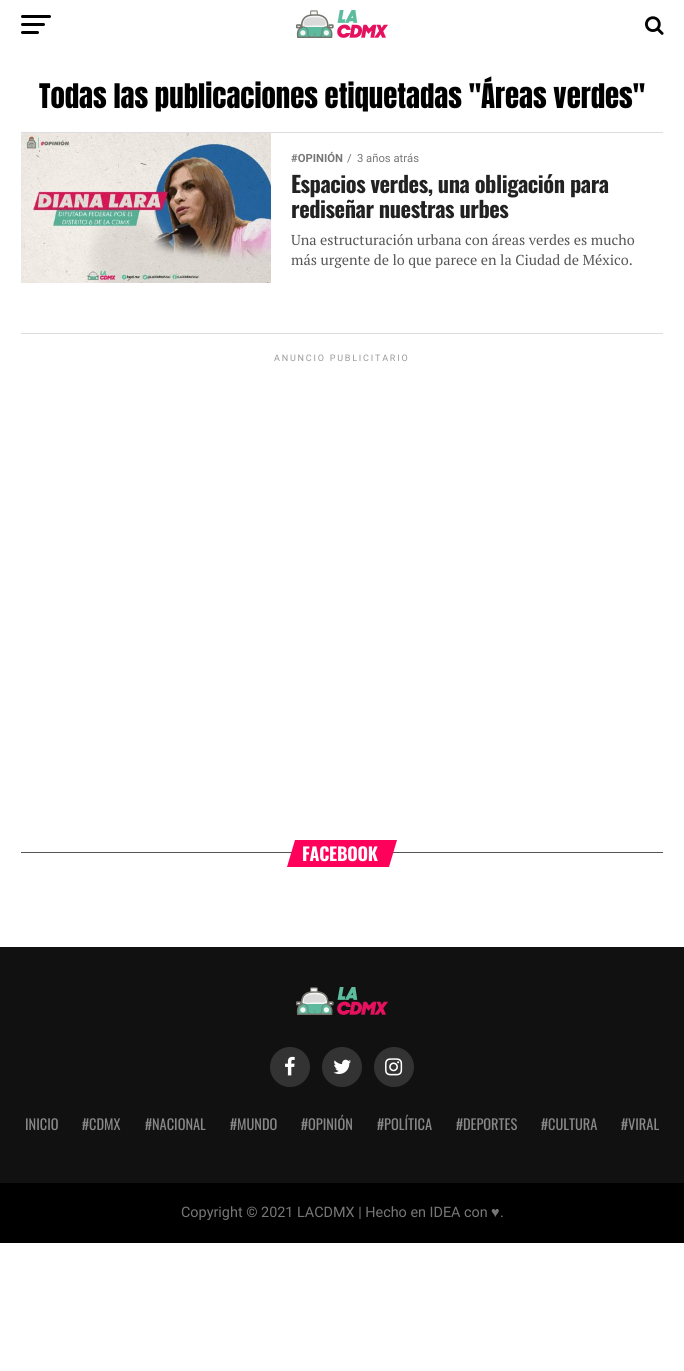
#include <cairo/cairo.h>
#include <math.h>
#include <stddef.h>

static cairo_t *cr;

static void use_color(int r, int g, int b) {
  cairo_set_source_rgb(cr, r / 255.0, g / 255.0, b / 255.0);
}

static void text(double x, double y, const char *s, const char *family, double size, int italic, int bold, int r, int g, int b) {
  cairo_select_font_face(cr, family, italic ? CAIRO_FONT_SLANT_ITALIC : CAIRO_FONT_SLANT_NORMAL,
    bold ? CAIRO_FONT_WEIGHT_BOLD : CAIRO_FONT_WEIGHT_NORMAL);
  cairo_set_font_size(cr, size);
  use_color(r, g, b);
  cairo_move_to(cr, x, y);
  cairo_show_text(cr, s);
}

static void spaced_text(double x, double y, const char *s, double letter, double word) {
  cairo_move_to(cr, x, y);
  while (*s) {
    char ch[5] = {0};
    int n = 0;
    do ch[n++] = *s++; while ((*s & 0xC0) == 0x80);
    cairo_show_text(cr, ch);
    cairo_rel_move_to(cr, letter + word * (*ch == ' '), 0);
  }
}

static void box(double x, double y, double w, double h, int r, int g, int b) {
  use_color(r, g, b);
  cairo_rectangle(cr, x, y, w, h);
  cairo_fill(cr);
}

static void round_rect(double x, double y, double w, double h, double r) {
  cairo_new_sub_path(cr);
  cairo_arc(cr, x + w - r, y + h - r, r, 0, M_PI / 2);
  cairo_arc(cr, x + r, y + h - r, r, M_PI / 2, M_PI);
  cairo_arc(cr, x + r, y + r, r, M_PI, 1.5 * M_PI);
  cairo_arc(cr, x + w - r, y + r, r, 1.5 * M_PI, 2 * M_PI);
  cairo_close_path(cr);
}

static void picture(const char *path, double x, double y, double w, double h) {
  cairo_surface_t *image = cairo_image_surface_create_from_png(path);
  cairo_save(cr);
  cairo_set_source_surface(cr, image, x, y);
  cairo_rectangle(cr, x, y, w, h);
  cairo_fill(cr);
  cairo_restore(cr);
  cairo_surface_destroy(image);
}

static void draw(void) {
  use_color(255, 255, 255);
  cairo_paint(cr);
  use_color(0, 0, 0);
  round_rect(21, 15, 30, 3, 1.5);
  cairo_fill(cr);
  round_rect(21, 23, 24, 3, 1.5);
  cairo_fill(cr);
  round_rect(21, 31, 18, 3, 1.5);
  cairo_fill(cr);
  picture("img_01.png", 296, 10, 92, 28);
  picture("img_02.png", 645, 16, 19, 19);
  box(21, 132, 642, 1, 221, 221, 221);
  picture("img_03.png", 21, 133, 250, 150);
  box(21, 333, 642, 1, 221, 221, 221);
  box(21, 852, 642, 1, 85, 85, 85);
  use_color(255, 0, 91);
  cairo_new_path(cr);
  cairo_move_to(cr, 295, 840);
  cairo_line_to(cr, 397, 840);
  cairo_line_to(cr, 389, 867);
  cairo_line_to(cr, 287, 867);
  cairo_close_path(cr);
  cairo_fill(cr);
  box(0, 947, 684, 236, 17, 17, 17);
  picture("img_04.png", 296, 987, 92, 28);
  use_color(51, 51, 51);
  cairo_arc(cr, 290, 1067, 20, 0, 2 * M_PI);
  cairo_fill(cr);
  picture("img_05.png", 285, 1056, 10, 20);
  cairo_arc(cr, 342, 1067, 20, 0, 2 * M_PI);
  cairo_fill(cr);
  picture("img_06.png", 333, 1059, 18, 15);
  cairo_arc(cr, 394, 1067, 20, 0, 2 * M_PI);
  cairo_fill(cr);
  picture("img_07.png", 385, 1058, 18, 18);
  box(0, 1183, 684, 60, 0, 0, 0);
  text(39, 108, "Todas las publicaciones etiquetadas \"Áreas verdes\"", "Anton", 28.8, 0, 0, 0, 0, 0);
  text(291, 162, "#OPINIÓN", "Roboto", 11.25, 0, 1, 119, 119, 119);
  text(347, 162, "/", "Roboto", 11.25, 0, 0, 119, 119, 119);
  text(357, 162, "3 años atrás", "Roboto", 11.25, 0, 0, 119, 119, 119);
  cairo_select_font_face(cr, "Oswald", CAIRO_FONT_SLANT_NORMAL, CAIRO_FONT_WEIGHT_BOLD);
  cairo_set_font_size(cr, 22.4);
  use_color(34, 34, 34);
  spaced_text(291, 193, "Espacios verdes, una obligación para", -0.45, 0);
  spaced_text(291, 218, "rediseñar nuestras urbes", -0.45, 0);
  text(291, 245, "Una estructuración urbana con áreas verdes es mucho", "PT Serif", 14.4, 0, 0, 85, 85, 85);
  text(291, 265, "más urgente de lo que parece en la Ciudad de México.", "PT Serif", 14.4, 0, 0, 85, 85, 85);
  cairo_select_font_face(cr, "Roboto", CAIRO_FONT_SLANT_NORMAL, CAIRO_FONT_WEIGHT_NORMAL);
  cairo_set_font_size(cr, 9);
  use_color(153, 153, 153);
  spaced_text(274, 361, "ANUNCIO PUBLICITARIO", 1.8, 0);
  cairo_select_font_face(cr, "Oswald", CAIRO_FONT_SLANT_NORMAL, CAIRO_FONT_WEIGHT_BOLD);
  cairo_set_font_size(cr, 18);
  use_color(255, 255, 255);
  spaced_text(302, 861, "FACEBOOK", -0.25, 0);
  text(25, 1130, "INICIO", "Oswald", 14.4, 0, 0, 136, 136, 136);
  text(82, 1130, "#CDMX", "Oswald", 14.4, 0, 0, 136, 136, 136);
  text(145, 1130, "#NACIONAL", "Oswald", 14.4, 0, 0, 136, 136, 136);
  text(230, 1130, "#MUNDO", "Oswald", 14.4, 0, 0, 136, 136, 136);
  text(301, 1130, "#OPINIÓN", "Oswald", 14.4, 0, 0, 136, 136, 136);
  text(377, 1130, "#POLÍTICA", "Oswald", 14.4, 0, 0, 136, 136, 136);
  text(456, 1130, "#DEPORTES", "Oswald", 14.4, 0, 0, 136, 136, 136);
  text(541, 1130, "#CULTURA", "Oswald", 14.4, 0, 0, 136, 136, 136);
  text(621, 1130, "#VIRAL", "Oswald", 14.4, 0, 0, 136, 136, 136);
  text(181, 1217, "Copyright © 2021 LACDMX | Hecho en IDEA con", "Roboto", 14.4, 0, 0, 119, 119, 119);
  text(491, 1217, "♥", "Liberation Sans", 14.4, 0, 0, 119, 119, 119);
  text(500, 1217, ".", "Roboto", 14.4, 0, 0, 119, 119, 119);
}

int main(void) {
  cairo_surface_t *surface = cairo_image_surface_create(CAIRO_FORMAT_RGB24, 684, 1371);
  cr = cairo_create(surface);
  cairo_font_options_t *options = cairo_font_options_create();
  cairo_font_options_set_hint_metrics(options, CAIRO_HINT_METRICS_OFF);
  cairo_font_options_set_hint_style(options, CAIRO_HINT_STYLE_NONE);
  cairo_set_font_options(cr, options);
  cairo_set_miter_limit(cr, 4);
  draw();
  cairo_surface_write_to_png(surface, "out.png");
  cairo_font_options_destroy(options);
  cairo_destroy(cr);
  cairo_surface_destroy(surface);
  return 0;
}
